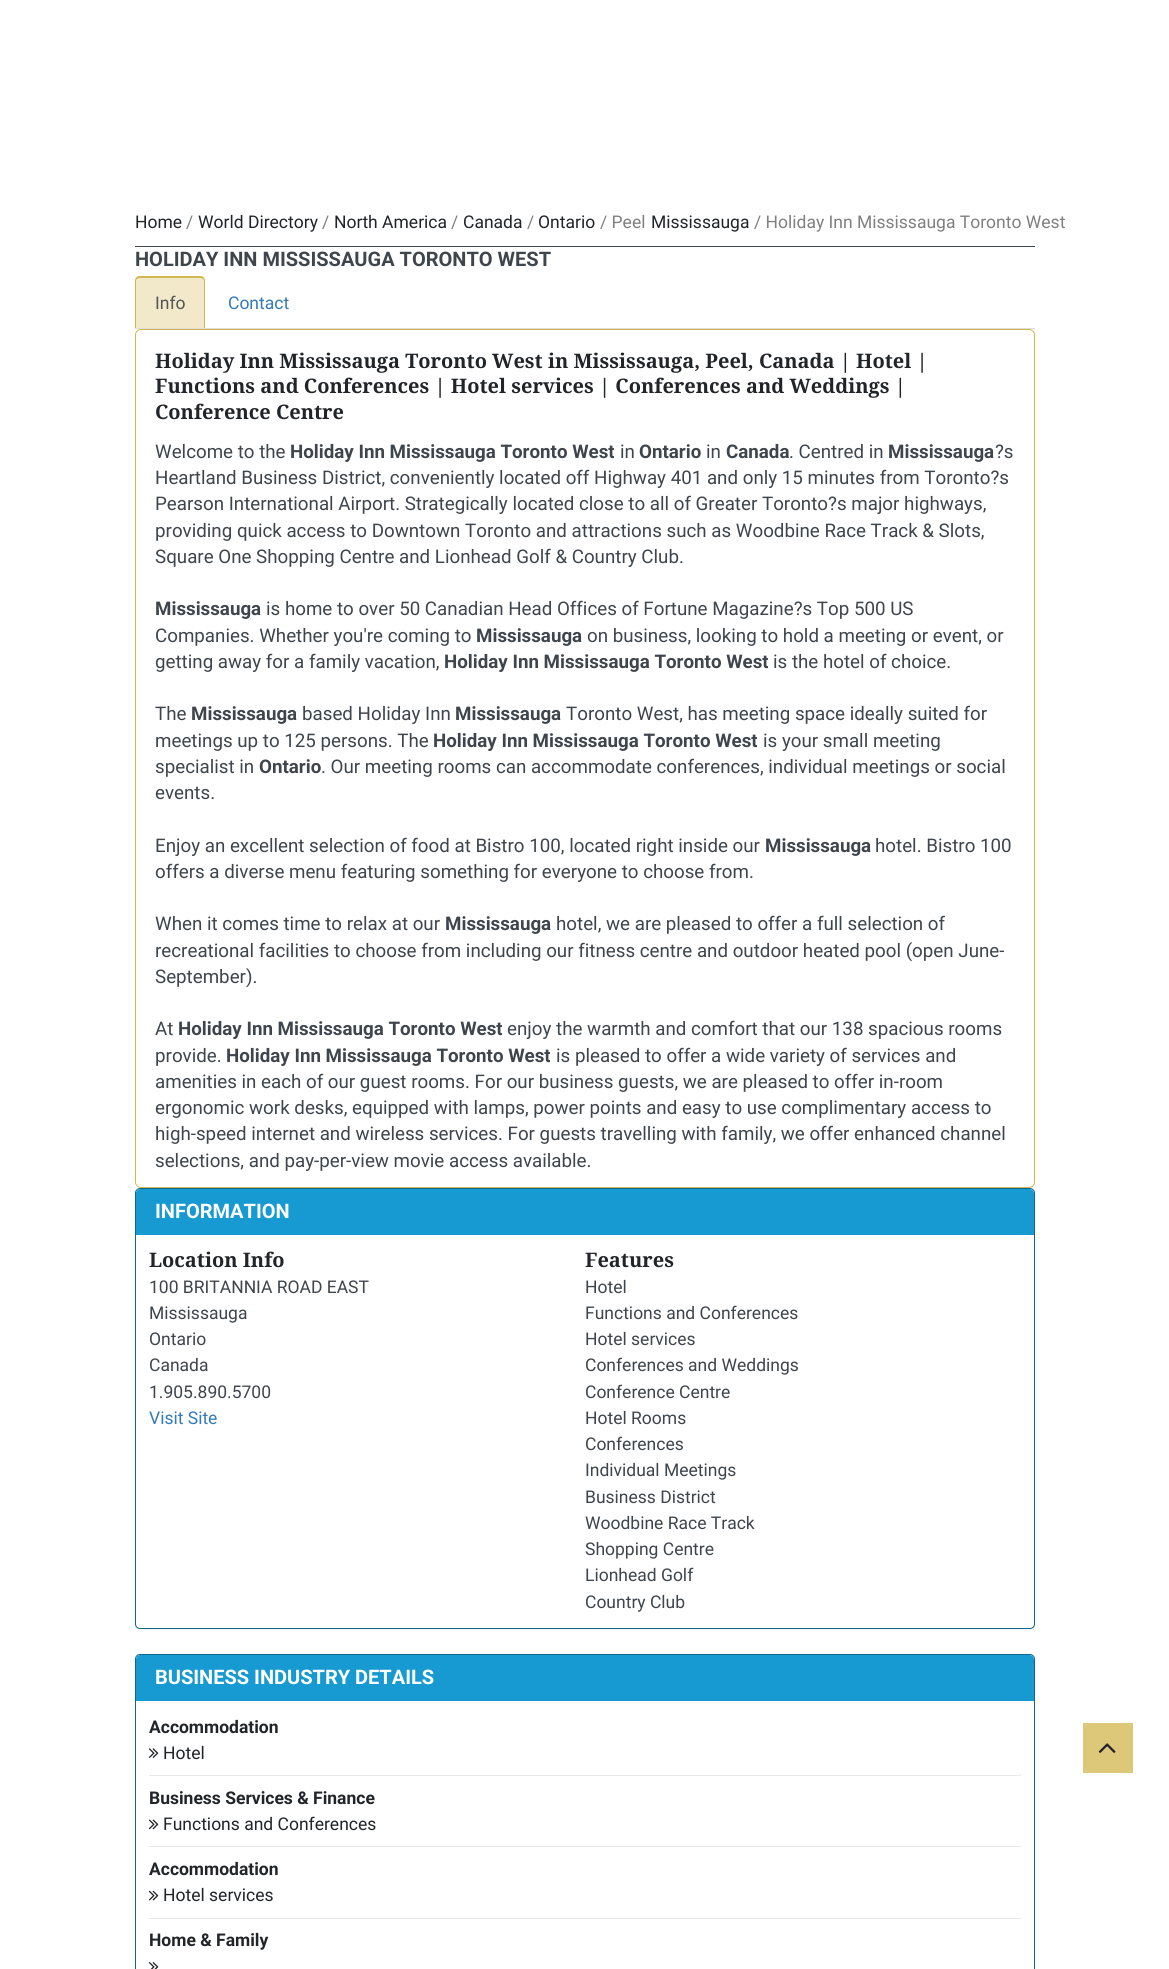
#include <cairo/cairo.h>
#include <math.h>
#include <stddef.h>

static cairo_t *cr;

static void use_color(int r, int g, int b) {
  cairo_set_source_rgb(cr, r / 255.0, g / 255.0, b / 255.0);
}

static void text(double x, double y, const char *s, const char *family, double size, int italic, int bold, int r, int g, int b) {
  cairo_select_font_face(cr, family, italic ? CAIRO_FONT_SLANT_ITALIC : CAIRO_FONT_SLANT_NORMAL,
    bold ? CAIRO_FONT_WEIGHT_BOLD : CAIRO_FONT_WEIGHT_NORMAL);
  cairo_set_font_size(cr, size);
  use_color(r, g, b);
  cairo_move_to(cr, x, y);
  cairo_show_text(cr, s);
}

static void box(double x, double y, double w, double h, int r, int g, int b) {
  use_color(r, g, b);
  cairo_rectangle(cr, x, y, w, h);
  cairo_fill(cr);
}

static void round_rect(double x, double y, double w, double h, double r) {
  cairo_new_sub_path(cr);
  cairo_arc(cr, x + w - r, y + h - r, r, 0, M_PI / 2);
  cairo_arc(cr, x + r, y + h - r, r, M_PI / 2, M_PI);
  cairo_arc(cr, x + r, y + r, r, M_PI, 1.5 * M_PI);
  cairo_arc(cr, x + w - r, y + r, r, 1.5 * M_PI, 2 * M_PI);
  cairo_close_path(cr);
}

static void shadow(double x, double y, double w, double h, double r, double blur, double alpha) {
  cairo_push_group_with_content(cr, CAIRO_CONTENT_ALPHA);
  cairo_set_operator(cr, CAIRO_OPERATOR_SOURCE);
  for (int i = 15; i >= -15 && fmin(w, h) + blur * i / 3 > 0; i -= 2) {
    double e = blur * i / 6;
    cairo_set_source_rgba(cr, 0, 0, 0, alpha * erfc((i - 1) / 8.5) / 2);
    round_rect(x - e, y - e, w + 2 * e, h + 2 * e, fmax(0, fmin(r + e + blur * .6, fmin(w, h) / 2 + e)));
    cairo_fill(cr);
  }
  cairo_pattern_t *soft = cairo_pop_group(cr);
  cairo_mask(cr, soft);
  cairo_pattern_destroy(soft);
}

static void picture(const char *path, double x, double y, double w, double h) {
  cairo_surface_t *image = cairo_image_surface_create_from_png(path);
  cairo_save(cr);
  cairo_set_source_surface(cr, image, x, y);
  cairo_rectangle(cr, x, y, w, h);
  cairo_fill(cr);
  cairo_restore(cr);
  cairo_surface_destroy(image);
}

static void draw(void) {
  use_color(255, 255, 255);
  cairo_paint(cr);
  box(135, 246, 900, 1, 62, 69, 76);
  box(135, 328, 900, 1, 221, 221, 221);
  use_color(241, 233, 201);
  cairo_new_path(cr);
  cairo_move_to(cr, 140, 276);
  cairo_line_to(cr, 200, 276);
  cairo_curve_to(cr, 203, 276, 205, 278, 205, 281);
  cairo_line_to(cr, 205, 328);
  cairo_line_to(cr, 135, 328);
  cairo_line_to(cr, 135, 281);
  cairo_curve_to(cr, 135, 278, 137, 276, 140, 276);
  cairo_close_path(cr);
  cairo_fill(cr);
  use_color(211, 182, 79);
  cairo_set_fill_rule(cr, CAIRO_FILL_RULE_EVEN_ODD);
  cairo_new_path(cr);
  cairo_move_to(cr, 140, 276);
  cairo_line_to(cr, 200, 276);
  cairo_curve_to(cr, 203, 276, 205, 278, 205, 281);
  cairo_line_to(cr, 205, 328);
  cairo_line_to(cr, 135, 328);
  cairo_line_to(cr, 135, 281);
  cairo_curve_to(cr, 135, 278, 137, 276, 140, 276);
  cairo_close_path(cr);
  cairo_move_to(cr, 140, 278);
  cairo_line_to(cr, 200, 278);
  cairo_curve_to(cr, 202, 278, 204, 279, 204, 281);
  cairo_line_to(cr, 204, 328);
  cairo_line_to(cr, 136, 328);
  cairo_line_to(cr, 136, 281);
  cairo_curve_to(cr, 136, 279, 138, 278, 140, 278);
  cairo_close_path(cr);
  cairo_fill(cr);
  round_rect(135.5, 329.5, 899, 858, 5.5);
  cairo_set_line_width(cr, 1);
  cairo_stroke(cr);
  use_color(0, 0, 0);
  shadow(135, 1189, 900, 441, 5, 0.5, 0.05);
  use_color(255, 255, 255);
  round_rect(135.5, 1188.5, 899, 440, 4.5);
  cairo_fill_preserve(cr);
  use_color(15, 103, 141);
  cairo_stroke(cr);
  use_color(23, 154, 210);
  cairo_new_path(cr);
  cairo_move_to(cr, 140, 1189);
  cairo_line_to(cr, 1030, 1189);
  cairo_curve_to(cr, 1032, 1189, 1034, 1191, 1034, 1193);
  cairo_line_to(cr, 1034, 1235);
  cairo_line_to(cr, 136, 1235);
  cairo_line_to(cr, 136, 1193);
  cairo_curve_to(cr, 136, 1191, 138, 1189, 140, 1189);
  cairo_close_path(cr);
  cairo_fill(cr);
  round_rect(135.5, 1654.5, 899, 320, 4.5);
  use_color(15, 103, 141);
  cairo_stroke(cr);
  use_color(23, 154, 210);
  cairo_new_path(cr);
  cairo_move_to(cr, 140, 1655);
  cairo_line_to(cr, 1030, 1655);
  cairo_curve_to(cr, 1032, 1655, 1034, 1657, 1034, 1659);
  cairo_line_to(cr, 1034, 1701);
  cairo_line_to(cr, 136, 1701);
  cairo_line_to(cr, 136, 1659);
  cairo_curve_to(cr, 136, 1657, 138, 1655, 140, 1655);
  cairo_close_path(cr);
  cairo_fill(cr);
  box(149, 1775, 872, 1, 232, 232, 232);
  picture("img_01.png", 148, 1748, 11, 10);
  box(149, 1846, 872, 1, 232, 232, 232);
  picture("img_02.png", 148, 1819, 11, 11);
  box(149, 1918, 872, 1, 232, 232, 232);
  picture("img_03.png", 148, 1890, 11, 11);
  picture("img_04.png", 148, 1962, 11, 7);
  box(1083, 1723, 50, 50, 221, 199, 120);
  picture("img_05.png", 1098, 1743, 18, 10);
  text(135, 228, "Home", "Roboto", 17.5, 0, 0, 33, 36, 40);
  text(186, 228, "/", "Roboto", 17.5, 0, 0, 128, 128, 128);
  text(198, 228, "World Directory", "Roboto", 17.5, 0, 0, 33, 36, 40);
  text(322, 228, "/", "Roboto", 17.5, 0, 0, 128, 128, 128);
  text(334, 228, "North America", "Roboto", 17.5, 0, 0, 33, 36, 40);
  text(451, 228, "/", "Roboto", 17.5, 0, 0, 128, 128, 128);
  text(463, 228, "Canada", "Roboto", 17.5, 0, 0, 33, 36, 40);
  text(527, 228, "/", "Roboto", 17.5, 0, 0, 128, 128, 128);
  text(538, 228, "Ontario", "Roboto", 17.5, 0, 0, 33, 36, 40);
  text(600, 228, "/ Peel", "Roboto", 17.5, 0, 0, 128, 128, 128);
  text(651, 228, "Mississauga", "Roboto", 17.5, 0, 0, 33, 36, 40);
  text(754, 228, "/ Holiday Inn Mississauga Toronto West", "Roboto", 17.5, 0, 0, 128, 128, 128);
  text(135, 266, "HOLIDAY INN MISSISSAUGA TORONTO WEST", "Roboto", 20, 0, 1, 62, 69, 76);
  text(155, 309, "Info", "Roboto", 17.5, 0, 0, 85, 85, 85);
  text(228, 309, "Contact", "Roboto", 17.5, 0, 0, 51, 122, 183);
  text(155, 368, "Holiday Inn Mississauga Toronto West in Mississauga, Peel, Canada | Hotel |", "Droid Serif", 20, 0, 1, 33, 36, 40);
  text(155, 393, "Functions and Conferences | Hotel services | Conferences and Weddings |", "Droid Serif", 20, 0, 1, 33, 36, 40);
  text(155, 419, "Conference Centre", "Droid Serif", 20, 0, 1, 33, 36, 40);
  text(155, 458, "Welcome to the", "Roboto", 18.75, 0, 0, 62, 69, 76);
  text(290, 458, "Holiday Inn Mississauga Toronto West", "Roboto", 18.75, 0, 1, 62, 69, 76);
  text(620, 458, "in", "Roboto", 18.75, 0, 0, 62, 69, 76);
  text(639, 458, "Ontario", "Roboto", 18.75, 0, 1, 62, 69, 76);
  text(706, 458, "in", "Roboto", 18.75, 0, 0, 62, 69, 76);
  text(726, 458, "Canada", "Roboto", 18.75, 0, 1, 62, 69, 76);
  text(789, 458, ". Centred in", "Roboto", 18.75, 0, 0, 62, 69, 76);
  text(888, 458, "Mississauga", "Roboto", 18.75, 0, 1, 62, 69, 76);
  text(995, 458, "?s", "Roboto", 18.75, 0, 0, 62, 69, 76);
  text(155, 484, "Heartland Business District, conveniently located off Highway 401 and only 15 minutes from Toronto?s", "Roboto", 18.75, 0, 0, 62, 69, 76);
  text(155, 510, "Pearson International Airport. Strategically located close to all of Greater Toronto?s major highways,", "Roboto", 18.75, 0, 0, 62, 69, 76);
  text(155, 537, "providing quick access to Downtown Toronto and attractions such as Woodbine Race Track & Slots,", "Roboto", 18.75, 0, 0, 62, 69, 76);
  text(155, 563, "Square One Shopping Centre and Lionhead Golf & Country Club.", "Roboto", 18.75, 0, 0, 62, 69, 76);
  text(155, 615, "Mississauga", "Roboto", 18.75, 0, 1, 62, 69, 76);
  text(266, 615, "is home to over 50 Canadian Head Offices of Fortune Magazine?s Top 500 US", "Roboto", 18.75, 0, 0, 62, 69, 76);
  text(155, 642, "Companies. Whether you're coming to", "Roboto", 18.75, 0, 0, 62, 69, 76);
  text(476, 642, "Mississauga", "Roboto", 18.75, 0, 1, 62, 69, 76);
  text(587, 642, "on business, looking to hold a meeting or event, or", "Roboto", 18.75, 0, 0, 62, 69, 76);
  text(155, 668, "getting away for a family vacation,", "Roboto", 18.75, 0, 0, 62, 69, 76);
  text(444, 668, "Holiday Inn Mississauga Toronto West", "Roboto", 18.75, 0, 1, 62, 69, 76);
  text(773, 668, "is the hotel of choice.", "Roboto", 18.75, 0, 0, 62, 69, 76);
  text(155, 720, "The", "Roboto", 18.75, 0, 0, 62, 69, 76);
  text(191, 720, "Mississauga", "Roboto", 18.75, 0, 1, 62, 69, 76);
  text(302, 720, "based Holiday Inn", "Roboto", 18.75, 0, 0, 62, 69, 76);
  text(455, 720, "Mississauga", "Roboto", 18.75, 0, 1, 62, 69, 76);
  text(566, 720, "Toronto West, has meeting space ideally suited for", "Roboto", 18.75, 0, 0, 62, 69, 76);
  text(155, 747, "meetings up to 125 persons. The", "Roboto", 18.75, 0, 0, 62, 69, 76);
  text(433, 747, "Holiday Inn Mississauga Toronto West", "Roboto", 18.75, 0, 1, 62, 69, 76);
  text(763, 747, "is your small meeting", "Roboto", 18.75, 0, 0, 62, 69, 76);
  text(155, 773, "specialist in", "Roboto", 18.75, 0, 0, 62, 69, 76);
  text(259, 773, "Ontario", "Roboto", 18.75, 0, 1, 62, 69, 76);
  text(321, 773, ". Our meeting rooms can accommodate conferences, individual meetings or social", "Roboto", 18.75, 0, 0, 62, 69, 76);
  text(155, 799, "events.", "Roboto", 18.75, 0, 0, 62, 69, 76);
  text(155, 852, "Enjoy an excellent selection of food at Bistro 100, located right inside our", "Roboto", 18.75, 0, 0, 62, 69, 76);
  text(765, 852, "Mississauga", "Roboto", 18.75, 0, 1, 62, 69, 76);
  text(875, 852, "hotel. Bistro 100", "Roboto", 18.75, 0, 0, 62, 69, 76);
  text(155, 878, "offers a diverse menu featuring something for everyone to choose from.", "Roboto", 18.75, 0, 0, 62, 69, 76);
  text(155, 930, "When it comes time to relax at our", "Roboto", 18.75, 0, 0, 62, 69, 76);
  text(445, 930, "Mississauga", "Roboto", 18.75, 0, 1, 62, 69, 76);
  text(556, 930, "hotel, we are pleased to offer a full selection of", "Roboto", 18.75, 0, 0, 62, 69, 76);
  text(155, 957, "recreational facilities to choose from including our fitness centre and outdoor heated pool (open June-", "Roboto", 18.75, 0, 0, 62, 69, 76);
  text(155, 983, "September).", "Roboto", 18.75, 0, 0, 62, 69, 76);
  text(155, 1035, "At", "Roboto", 18.75, 0, 0, 62, 69, 76);
  text(178, 1035, "Holiday Inn Mississauga Toronto West", "Roboto", 18.75, 0, 1, 62, 69, 76);
  text(507, 1035, "enjoy the warmth and comfort that our 138 spacious rooms", "Roboto", 18.75, 0, 0, 62, 69, 76);
  text(155, 1062, "provide.", "Roboto", 18.75, 0, 0, 62, 69, 76);
  text(226, 1062, "Holiday Inn Mississauga Toronto West", "Roboto", 18.75, 0, 1, 62, 69, 76);
  text(556, 1062, "is pleased to offer a wide variety of services and", "Roboto", 18.75, 0, 0, 62, 69, 76);
  text(155, 1088, "amenities in each of our guest rooms. For our business guests, we are pleased to offer in-room", "Roboto", 18.75, 0, 0, 62, 69, 76);
  text(155, 1114, "ergonomic work desks, equipped with lamps, power points and easy to use complimentary access to", "Roboto", 18.75, 0, 0, 62, 69, 76);
  text(155, 1140, "high-speed internet and wireless services. For guests travelling with family, we offer enhanced channel", "Roboto", 18.75, 0, 0, 62, 69, 76);
  text(155, 1167, "selections, and pay-per-view movie access available.", "Roboto", 18.75, 0, 0, 62, 69, 76);
  text(155, 1218, "INFORMATION", "Roboto", 20, 0, 1, 255, 255, 255);
  text(149, 1267, "Location Info", "Droid Serif", 20, 0, 1, 33, 36, 40);
  text(585, 1267, "Features", "Droid Serif", 20, 0, 1, 33, 36, 40);
  text(149, 1293, "100 BRITANNIA ROAD EAST", "Roboto", 17.5, 0, 0, 62, 69, 76);
  text(149, 1319, "Mississauga", "Roboto", 17.5, 0, 0, 62, 69, 76);
  text(149, 1345, "Ontario", "Roboto", 17.5, 0, 0, 62, 69, 76);
  text(149, 1371, "Canada", "Roboto", 17.5, 0, 0, 62, 69, 76);
  text(149, 1398, "1.905.890.5700", "Roboto", 17.5, 0, 0, 62, 69, 76);
  text(149, 1424, "Visit Site", "Roboto", 17.5, 0, 0, 51, 122, 183);
  text(585, 1293, "Hotel", "Roboto", 17.5, 0, 0, 62, 69, 76);
  text(585, 1319, "Functions and Conferences", "Roboto", 17.5, 0, 0, 62, 69, 76);
  text(585, 1345, "Hotel services", "Roboto", 17.5, 0, 0, 62, 69, 76);
  text(585, 1371, "Conferences and Weddings", "Roboto", 17.5, 0, 0, 62, 69, 76);
  text(585, 1398, "Conference Centre", "Roboto", 17.5, 0, 0, 62, 69, 76);
  text(585, 1424, "Hotel Rooms", "Roboto", 17.5, 0, 0, 62, 69, 76);
  text(585, 1450, "Conferences", "Roboto", 17.5, 0, 0, 62, 69, 76);
  text(585, 1476, "Individual Meetings", "Roboto", 17.5, 0, 0, 62, 69, 76);
  text(585, 1503, "Business District", "Roboto", 17.5, 0, 0, 62, 69, 76);
  text(585, 1529, "Woodbine Race Track", "Roboto", 17.5, 0, 0, 62, 69, 76);
  text(585, 1555, "Shopping Centre", "Roboto", 17.5, 0, 0, 62, 69, 76);
  text(585, 1581, "Lionhead Golf", "Roboto", 17.5, 0, 0, 62, 69, 76);
  text(585, 1608, "Country Club", "Roboto", 17.5, 0, 0, 62, 69, 76);
  text(155, 1684, "BUSINESS INDUSTRY DETAILS", "Roboto", 20, 0, 1, 255, 255, 255);
  text(149, 1733, "Accommodation", "Roboto", 17.5, 0, 1, 33, 36, 40);
  text(163, 1759, "Hotel", "Roboto", 17.5, 0, 0, 33, 36, 40);
  text(149, 1804, "Business Services & Finance", "Roboto", 17.5, 0, 1, 33, 36, 40);
  text(163, 1830, "Functions and Conferences", "Roboto", 17.5, 0, 0, 33, 36, 40);
  text(149, 1875, "Accommodation", "Roboto", 17.5, 0, 1, 33, 36, 40);
  text(163, 1901, "Hotel services", "Roboto", 17.5, 0, 0, 33, 36, 40);
  text(149, 1946, "Home & Family", "Roboto", 17.5, 0, 1, 33, 36, 40);
}

int main(void) {
  cairo_surface_t *surface = cairo_image_surface_create(CAIRO_FORMAT_RGB24, 1169, 1969);
  cr = cairo_create(surface);
  cairo_font_options_t *options = cairo_font_options_create();
  cairo_font_options_set_hint_metrics(options, CAIRO_HINT_METRICS_OFF);
  cairo_font_options_set_hint_style(options, CAIRO_HINT_STYLE_NONE);
  cairo_set_font_options(cr, options);
  cairo_set_miter_limit(cr, 4);
  draw();
  cairo_surface_write_to_png(surface, "out.png");
  cairo_font_options_destroy(options);
  cairo_destroy(cr);
  cairo_surface_destroy(surface);
  return 0;
}
